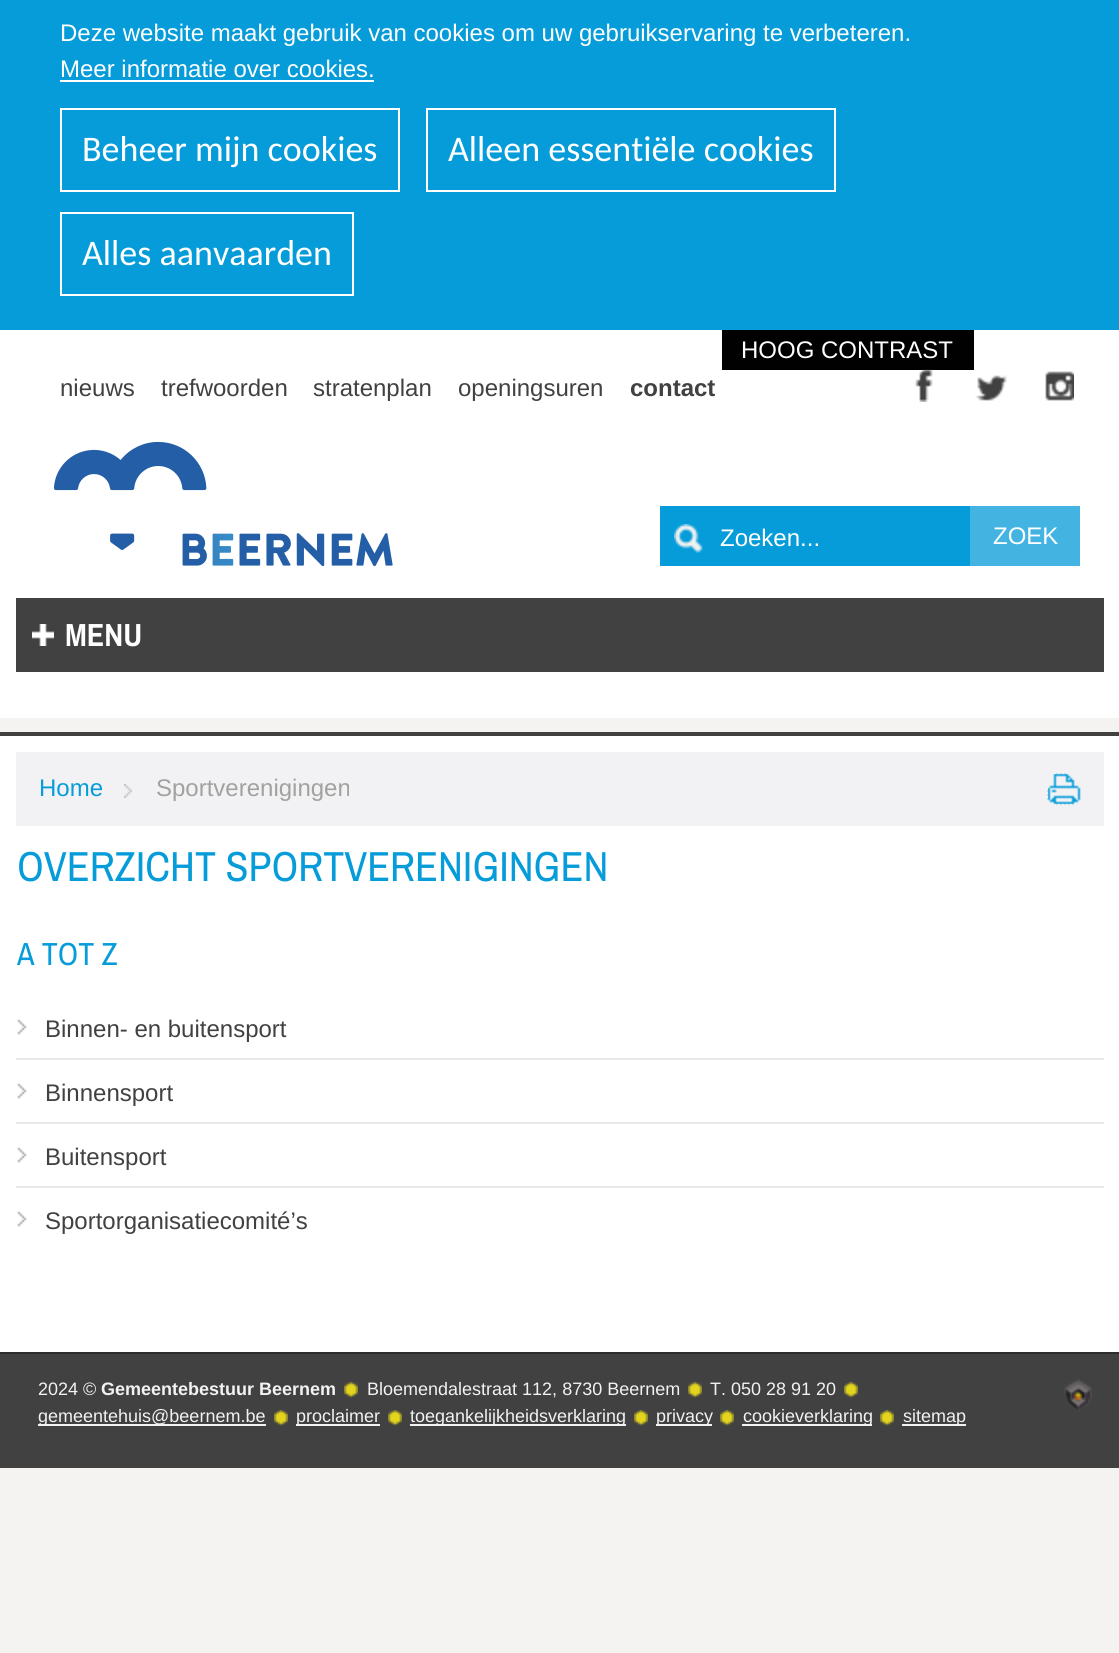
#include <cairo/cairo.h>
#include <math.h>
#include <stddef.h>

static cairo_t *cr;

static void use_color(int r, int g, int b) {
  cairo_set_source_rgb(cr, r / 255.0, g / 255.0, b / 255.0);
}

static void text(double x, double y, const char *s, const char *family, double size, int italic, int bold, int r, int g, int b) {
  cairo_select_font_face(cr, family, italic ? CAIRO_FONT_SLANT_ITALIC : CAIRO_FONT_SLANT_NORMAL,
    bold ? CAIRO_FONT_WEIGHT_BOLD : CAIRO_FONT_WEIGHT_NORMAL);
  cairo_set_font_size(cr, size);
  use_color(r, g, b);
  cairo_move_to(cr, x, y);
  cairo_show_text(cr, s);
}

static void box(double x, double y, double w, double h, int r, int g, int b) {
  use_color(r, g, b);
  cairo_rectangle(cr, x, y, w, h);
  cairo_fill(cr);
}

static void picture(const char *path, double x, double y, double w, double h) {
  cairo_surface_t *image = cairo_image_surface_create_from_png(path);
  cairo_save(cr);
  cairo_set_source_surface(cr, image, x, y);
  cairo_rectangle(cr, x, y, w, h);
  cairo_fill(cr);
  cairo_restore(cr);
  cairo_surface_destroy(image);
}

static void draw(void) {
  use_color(244, 243, 242);
  cairo_paint(cr);
  box(0, 0, 1119, 330, 5, 156, 217);
  box(60, 80, 314, 2, 255, 255, 255);
  cairo_rectangle(cr, 61, 109, 338, 82);
  cairo_stroke(cr);
  cairo_rectangle(cr, 427, 109, 408, 82);
  cairo_stroke(cr);
  cairo_rectangle(cr, 61, 213, 292, 82);
  cairo_stroke(cr);
  box(0, 330, 1119, 388, 255, 255, 255);
  box(722, 330, 252, 40, 1, 1, 1);
  picture("img_01.png", 915, 369, 18, 33);
  picture("img_02.png", 975, 375, 32, 26);
  picture("img_03.png", 1045, 371, 29, 30);
  picture("img_04.png", 53, 441, 340, 126);
  box(660, 506, 310, 60, 5, 156, 217);
  picture("img_05.png", 674, 524, 29, 29);
  box(970, 506, 110, 60, 67, 180, 226);
  box(16, 598, 1088, 74, 65, 65, 65);
  picture("img_06.png", 32, 624, 22, 22);
  box(0, 732, 1119, 4, 65, 65, 65);
  box(0, 736, 1119, 616, 255, 255, 255);
  box(16, 752, 1088, 74, 242, 242, 244);
  picture("img_07.png", 124, 784, 8, 14);
  picture("img_08.png", 1047, 773, 34, 32);
  cairo_new_path(cr);
  cairo_move_to(cr, 1046, 773);
  cairo_line_to(cr, 1084, 773);
  cairo_move_to(cr, 1046, 805);
  cairo_line_to(cr, 1084, 805);
  cairo_move_to(cr, 1047, 772);
  cairo_line_to(cr, 1047, 806);
  cairo_set_dash(cr, (double[]){2, 2}, 2, 0);
  cairo_stroke(cr);
  picture("img_09.png", 17, 1019, 10, 16);
  box(16, 1058, 1088, 2, 234, 234, 234);
  picture("img_09.png", 17, 1083, 10, 16);
  box(16, 1122, 1088, 2, 234, 234, 234);
  picture("img_09.png", 17, 1147, 10, 16);
  box(16, 1186, 1088, 2, 234, 234, 234);
  picture("img_09.png", 17, 1211, 10, 16);
  box(0, 1354, 1119, 114, 65, 65, 65);
  box(0, 1352, 1119, 2, 45, 45, 45);
  picture("img_10.png", 344, 1382, 14, 16);
  picture("img_10.png", 688, 1382, 14, 16);
  picture("img_10.png", 844, 1382, 14, 16);
  picture("img_11.png", 1064, 1379, 28, 33);
  picture("img_10.png", 274, 1410, 14, 16);
  box(38, 1424, 228, 2, 242, 242, 244);
  picture("img_10.png", 388, 1410, 14, 16);
  box(296, 1424, 84, 2, 242, 242, 244);
  picture("img_10.png", 634, 1410, 14, 16);
  box(410, 1424, 216, 2, 242, 242, 244);
  picture("img_10.png", 720, 1410, 14, 16);
  box(656, 1424, 56, 2, 242, 242, 244);
  picture("img_10.png", 880, 1410, 14, 16);
  box(742, 1424, 130, 2, 242, 242, 244);
  box(902, 1424, 64, 2, 242, 242, 244);
  text(60, 41, "Deze website maakt gebruik van cookies om uw gebruikservaring te verbeteren.", "Liberation Sans", 24, 0, 0, 255, 255, 255);
  text(60, 77, "Meer informatie over cookies.", "Liberation Sans", 24, 0, 0, 255, 255, 255);
  text(82, 161, "Beheer mijn cookies", "Carlito", 36, 0, 0, 255, 255, 255);
  text(448, 161, "Alleen essentiële cookies", "Carlito", 36, 0, 0, 255, 255, 255);
  text(82, 265, "Alles aanvaarden", "Carlito", 36, 0, 0, 255, 255, 255);
  text(741, 358, "HOOG CONTRAST", "Liberation Sans", 24, 0, 0, 255, 255, 255);
  text(60, 396, "nieuws", "Liberation Sans", 24, 0, 0, 65, 65, 65);
  text(161, 396, "trefwoorden", "Liberation Sans", 24, 0, 0, 65, 65, 65);
  text(313, 396, "stratenplan", "Liberation Sans", 24, 0, 0, 65, 65, 65);
  text(458, 396, "openingsuren", "Liberation Sans", 24, 0, 0, 65, 65, 65);
  text(630, 396, "contact", "Liberation Sans", 24, 0, 1, 65, 65, 65);
  text(720, 546, "Zoeken...", "Liberation Sans", 24, 0, 0, 255, 255, 255);
  text(993, 544, "ZOEK", "Liberation Sans", 24, 0, 0, 255, 255, 255);
  text(65, 646, "MENU", "Archivo Narrow", 32, 0, 1, 255, 255, 255);
  text(39, 796, "Home", "Liberation Sans", 24, 0, 0, 5, 156, 217);
  text(156, 796, "Sportverenigingen", "Liberation Sans", 24, 0, 0, 162, 161, 159);
  text(17, 881, "OVERZICHT SPORTVERENIGINGEN", "Archivo Narrow", 42, 0, 0, 5, 156, 217);
  text(17, 965, "A TOT Z", "Archivo Narrow", 32, 0, 0, 5, 156, 217);
  text(45, 1037, "Binnen- en buitensport", "Liberation Sans", 24, 0, 0, 65, 65, 65);
  text(45, 1101, "Binnensport", "Liberation Sans", 24, 0, 0, 65, 65, 65);
  text(45, 1165, "Buitensport", "Liberation Sans", 24, 0, 0, 65, 65, 65);
  text(45, 1229, "Sportorganisatiecomité’s", "Liberation Sans", 24, 0, 0, 65, 65, 65);
  text(38, 1395, "2024 ©", "Liberation Sans", 18, 0, 0, 242, 242, 244);
  text(101, 1395, "Gemeentebestuur Beernem", "Liberation Sans", 18, 0, 1, 242, 242, 244);
  text(367, 1395, "Bloemendalestraat 112, 8730 Beernem", "Liberation Sans", 18, 0, 0, 242, 242, 244);
  text(710, 1395, "T. 050 28 91 20", "Liberation Sans", 18, 0, 0, 242, 242, 244);
  text(38, 1422, "gemeentehuis@beernem.be", "Liberation Sans", 18, 0, 0, 242, 242, 244);
  text(296, 1422, "proclaimer", "Liberation Sans", 18, 0, 0, 242, 242, 244);
  text(410, 1422, "toegankelijkheidsverklaring", "Liberation Sans", 18, 0, 0, 242, 242, 244);
  text(656, 1422, "privacy", "Liberation Sans", 18, 0, 0, 242, 242, 244);
  text(743, 1422, "cookieverklaring", "Liberation Sans", 18, 0, 0, 242, 242, 244);
  text(903, 1422, "sitemap", "Liberation Sans", 18, 0, 0, 242, 242, 244);
}

int main(void) {
  cairo_surface_t *surface = cairo_image_surface_create(CAIRO_FORMAT_RGB24, 1119, 1653);
  cr = cairo_create(surface);
  cairo_font_options_t *options = cairo_font_options_create();
  cairo_font_options_set_hint_metrics(options, CAIRO_HINT_METRICS_OFF);
  cairo_font_options_set_hint_style(options, CAIRO_HINT_STYLE_NONE);
  cairo_set_font_options(cr, options);
  cairo_set_miter_limit(cr, 4);
  draw();
  cairo_surface_write_to_png(surface, "out.png");
  cairo_font_options_destroy(options);
  cairo_destroy(cr);
  cairo_surface_destroy(surface);
  return 0;
}
